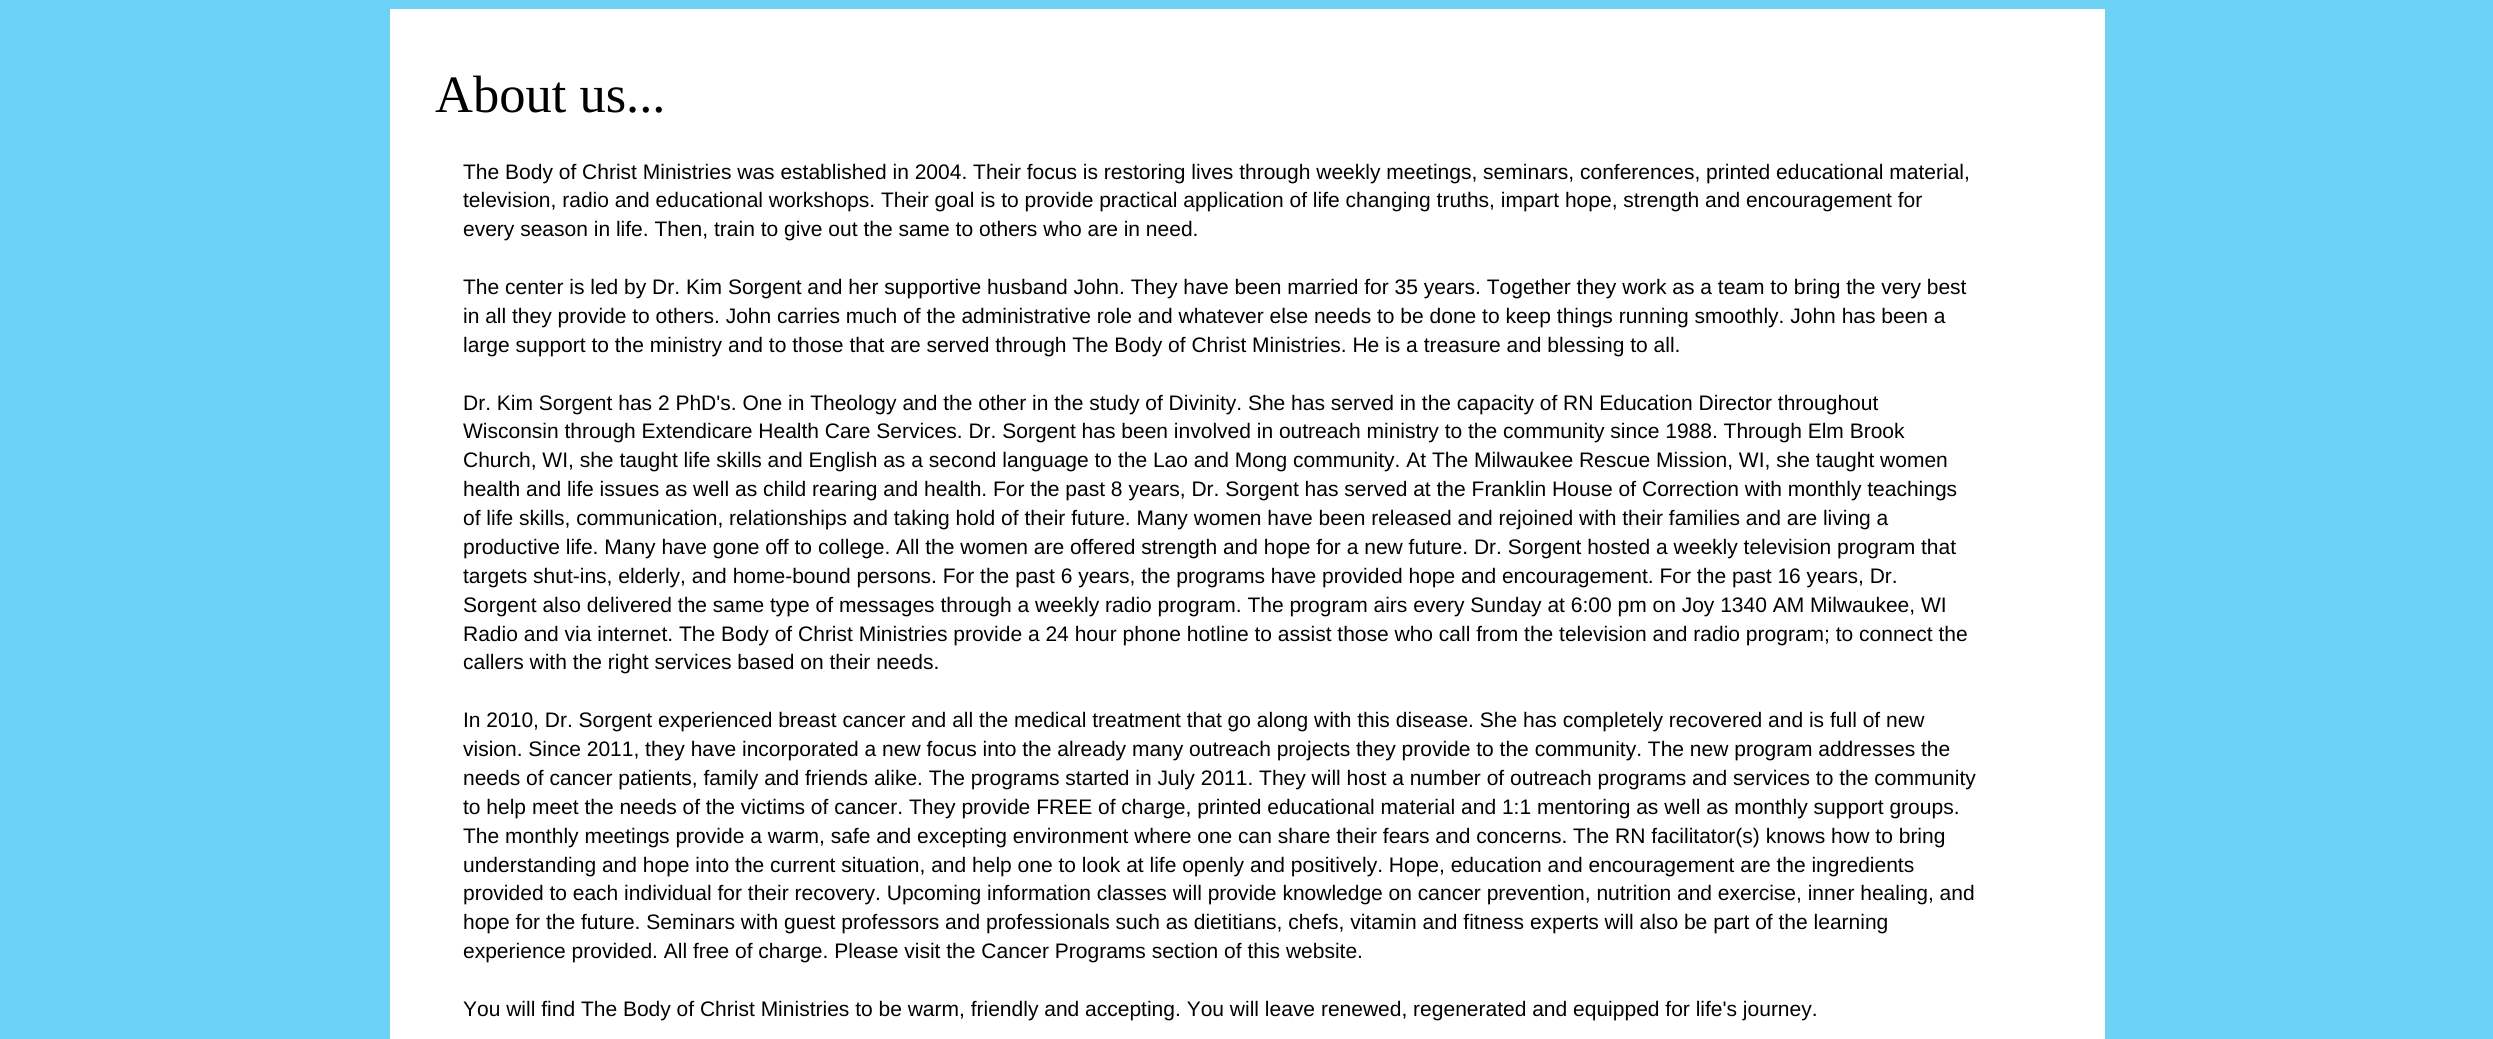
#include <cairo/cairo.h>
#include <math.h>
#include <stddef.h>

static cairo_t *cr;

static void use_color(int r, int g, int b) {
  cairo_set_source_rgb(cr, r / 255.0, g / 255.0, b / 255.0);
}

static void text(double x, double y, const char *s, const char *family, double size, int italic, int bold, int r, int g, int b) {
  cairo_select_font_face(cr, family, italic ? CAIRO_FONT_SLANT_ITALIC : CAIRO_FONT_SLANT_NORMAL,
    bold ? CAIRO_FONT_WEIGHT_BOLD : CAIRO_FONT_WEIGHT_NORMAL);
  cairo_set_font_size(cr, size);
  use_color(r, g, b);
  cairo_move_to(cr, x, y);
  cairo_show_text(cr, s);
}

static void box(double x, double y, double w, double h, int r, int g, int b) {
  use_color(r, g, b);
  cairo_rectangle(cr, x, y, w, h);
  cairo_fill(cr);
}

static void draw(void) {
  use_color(109, 209, 245);
  cairo_paint(cr);
  box(390, 9, 1715, 1030, 255, 255, 255);
  text(435, 112, "About us...", "Liberation Serif", 52.5, 0, 0, 0, 0, 0);
  text(463, 179, "The Body of Christ Ministries was established in 2004. Their focus is restoring lives through weekly meetings, seminars, conferences, printed educational material,", "Liberation Sans", 21, 0, 0, 0, 0, 0);
  text(463, 207, "television, radio and educational workshops. Their goal is to provide practical application of life changing truths, impart hope, strength and encouragement for", "Liberation Sans", 21, 0, 0, 0, 0, 0);
  text(463, 236, "every season in life. Then, train to give out the same to others who are in need.", "Liberation Sans", 21, 0, 0, 0, 0, 0);
  text(463, 294, "The center is led by Dr. Kim Sorgent and her supportive husband John. They have been married for 35 years. Together they work as a team to bring the very best", "Liberation Sans", 21, 0, 0, 0, 0, 0);
  text(463, 323, "in all they provide to others. John carries much of the administrative role and whatever else needs to be done to keep things running smoothly. John has been a", "Liberation Sans", 21, 0, 0, 0, 0, 0);
  text(463, 352, "large support to the ministry and to those that are served through The Body of Christ Ministries. He is a treasure and blessing to all.", "Liberation Sans", 21, 0, 0, 0, 0, 0);
  text(463, 410, "Dr. Kim Sorgent has 2 PhD's. One in Theology and the other in the study of Divinity. She has served in the capacity of RN Education Director throughout", "Liberation Sans", 21, 0, 0, 0, 0, 0);
  text(463, 438, "Wisconsin through Extendicare Health Care Services. Dr. Sorgent has been involved in outreach ministry to the community since 1988. Through Elm Brook", "Liberation Sans", 21, 0, 0, 0, 0, 0);
  text(463, 467, "Church, WI, she taught life skills and English as a second language to the Lao and Mong community. At The Milwaukee Rescue Mission, WI, she taught women", "Liberation Sans", 21, 0, 0, 0, 0, 0);
  text(463, 496, "health and life issues as well as child rearing and health. For the past 8 years, Dr. Sorgent has served at the Franklin House of Correction with monthly teachings", "Liberation Sans", 21, 0, 0, 0, 0, 0);
  text(463, 525, "of life skills, communication, relationships and taking hold of their future. Many women have been released and rejoined with their families and are living a", "Liberation Sans", 21, 0, 0, 0, 0, 0);
  text(463, 554, "productive life. Many have gone off to college. All the women are offered strength and hope for a new future. Dr. Sorgent hosted a weekly television program that", "Liberation Sans", 21, 0, 0, 0, 0, 0);
  text(463, 583, "targets shut-ins, elderly, and home-bound persons. For the past 6 years, the programs have provided hope and encouragement. For the past 16 years, Dr.", "Liberation Sans", 21, 0, 0, 0, 0, 0);
  text(463, 612, "Sorgent also delivered the same type of messages through a weekly radio program. The program airs every Sunday at 6:00 pm on Joy 1340 AM Milwaukee, WI", "Liberation Sans", 21, 0, 0, 0, 0, 0);
  text(463, 641, "Radio and via internet. The Body of Christ Ministries provide a 24 hour phone hotline to assist those who call from the television and radio program; to connect the", "Liberation Sans", 21, 0, 0, 0, 0, 0);
  text(463, 669, "callers with the right services based on their needs.", "Liberation Sans", 21, 0, 0, 0, 0, 0);
  text(463, 727, "In 2010, Dr. Sorgent experienced breast cancer and all the medical treatment that go along with this disease. She has completely recovered and is full of new", "Liberation Sans", 21, 0, 0, 0, 0, 0);
  text(463, 756, "vision. Since 2011, they have incorporated a new focus into the already many outreach projects they provide to the community. The new program addresses the", "Liberation Sans", 21, 0, 0, 0, 0, 0);
  text(463, 785, "needs of cancer patients, family and friends alike. The programs started in July 2011. They will host a number of outreach programs and services to the community", "Liberation Sans", 21, 0, 0, 0, 0, 0);
  text(463, 814, "to help meet the needs of the victims of cancer. They provide FREE of charge, printed educational material and 1:1 mentoring as well as monthly support groups.", "Liberation Sans", 21, 0, 0, 0, 0, 0);
  text(463, 843, "The monthly meetings provide a warm, safe and excepting environment where one can share their fears and concerns. The RN facilitator(s) knows how to bring", "Liberation Sans", 21, 0, 0, 0, 0, 0);
  text(463, 872, "understanding and hope into the current situation, and help one to look at life openly and positively. Hope, education and encouragement are the ingredients", "Liberation Sans", 21, 0, 0, 0, 0, 0);
  text(463, 900, "provided to each individual for their recovery. Upcoming information classes will provide knowledge on cancer prevention, nutrition and exercise, inner healing, and", "Liberation Sans", 21, 0, 0, 0, 0, 0);
  text(463, 929, "hope for the future. Seminars with guest professors and professionals such as dietitians, chefs, vitamin and fitness experts will also be part of the learning", "Liberation Sans", 21, 0, 0, 0, 0, 0);
  text(463, 958, "experience provided. All free of charge. Please visit the Cancer Programs section of this website.", "Liberation Sans", 21, 0, 0, 0, 0, 0);
  text(463, 1016, "You will find The Body of Christ Ministries to be warm, friendly and accepting. You will leave renewed, regenerated and equipped for life's journey.", "Liberation Sans", 21, 0, 0, 0, 0, 0);
}

int main(void) {
  cairo_surface_t *surface = cairo_image_surface_create(CAIRO_FORMAT_RGB24, 2493, 1039);
  cr = cairo_create(surface);
  cairo_font_options_t *options = cairo_font_options_create();
  cairo_font_options_set_hint_metrics(options, CAIRO_HINT_METRICS_OFF);
  cairo_font_options_set_hint_style(options, CAIRO_HINT_STYLE_NONE);
  cairo_set_font_options(cr, options);
  cairo_set_miter_limit(cr, 4);
  draw();
  cairo_surface_write_to_png(surface, "out.png");
  cairo_font_options_destroy(options);
  cairo_destroy(cr);
  cairo_surface_destroy(surface);
  return 0;
}
